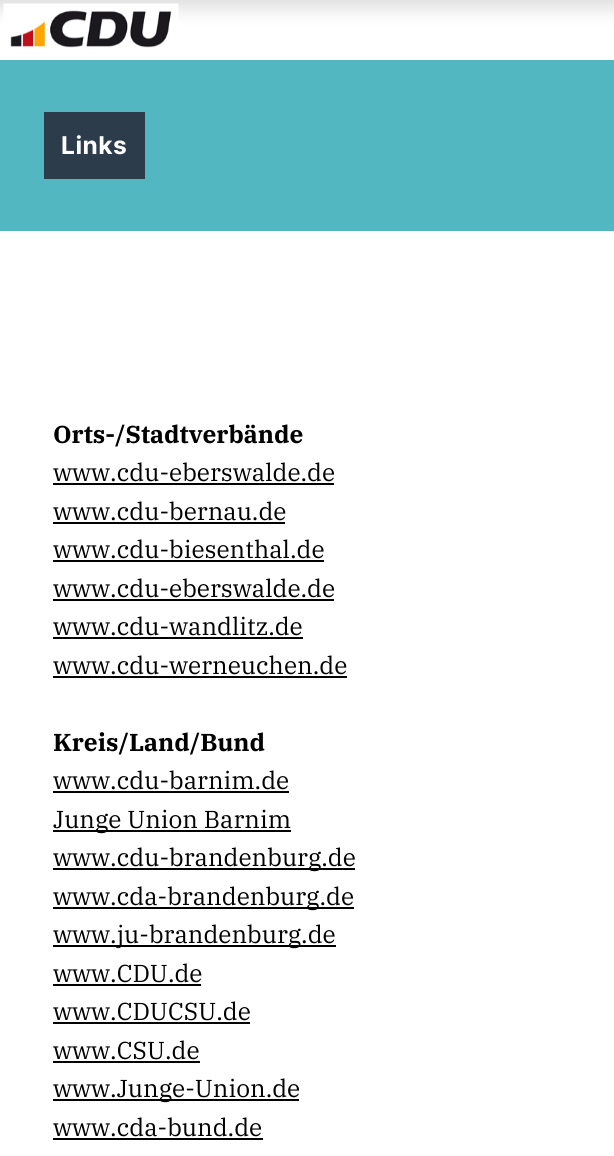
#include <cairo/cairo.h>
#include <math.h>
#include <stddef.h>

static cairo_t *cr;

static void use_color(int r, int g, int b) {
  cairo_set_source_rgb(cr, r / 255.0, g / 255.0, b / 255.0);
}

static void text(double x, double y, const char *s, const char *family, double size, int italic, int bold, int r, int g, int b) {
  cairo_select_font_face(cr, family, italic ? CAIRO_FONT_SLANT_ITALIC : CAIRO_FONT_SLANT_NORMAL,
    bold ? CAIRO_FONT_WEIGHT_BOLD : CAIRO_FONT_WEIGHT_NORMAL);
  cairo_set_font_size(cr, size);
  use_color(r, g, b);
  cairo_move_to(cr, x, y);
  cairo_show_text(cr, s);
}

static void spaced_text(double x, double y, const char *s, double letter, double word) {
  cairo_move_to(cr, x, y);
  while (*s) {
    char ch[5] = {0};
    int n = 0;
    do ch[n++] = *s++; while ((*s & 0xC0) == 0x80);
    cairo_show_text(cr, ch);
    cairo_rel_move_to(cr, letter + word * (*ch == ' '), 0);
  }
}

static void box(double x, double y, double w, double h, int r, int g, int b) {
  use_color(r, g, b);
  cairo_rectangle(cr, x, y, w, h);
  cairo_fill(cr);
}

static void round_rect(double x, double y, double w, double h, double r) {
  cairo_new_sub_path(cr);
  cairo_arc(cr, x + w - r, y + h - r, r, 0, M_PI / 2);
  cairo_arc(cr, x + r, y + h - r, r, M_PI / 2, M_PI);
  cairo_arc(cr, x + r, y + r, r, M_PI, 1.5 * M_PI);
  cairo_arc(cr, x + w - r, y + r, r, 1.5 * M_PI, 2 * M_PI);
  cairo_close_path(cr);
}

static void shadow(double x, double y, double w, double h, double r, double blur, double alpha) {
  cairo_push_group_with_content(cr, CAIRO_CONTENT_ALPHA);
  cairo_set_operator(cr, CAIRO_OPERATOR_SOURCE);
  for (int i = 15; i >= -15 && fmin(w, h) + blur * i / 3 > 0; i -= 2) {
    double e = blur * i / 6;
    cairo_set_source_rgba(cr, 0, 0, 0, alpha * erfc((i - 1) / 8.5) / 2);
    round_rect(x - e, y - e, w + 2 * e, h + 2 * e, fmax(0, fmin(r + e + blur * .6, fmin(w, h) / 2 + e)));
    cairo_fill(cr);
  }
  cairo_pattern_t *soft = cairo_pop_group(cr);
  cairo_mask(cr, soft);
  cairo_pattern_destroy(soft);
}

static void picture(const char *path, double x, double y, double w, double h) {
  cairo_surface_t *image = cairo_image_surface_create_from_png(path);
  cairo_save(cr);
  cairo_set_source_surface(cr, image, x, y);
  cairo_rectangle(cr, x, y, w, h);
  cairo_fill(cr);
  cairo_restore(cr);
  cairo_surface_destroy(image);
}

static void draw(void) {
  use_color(255, 255, 255);
  cairo_paint(cr);
  use_color(0, 0, 0);
  shadow(-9, -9, 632, 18, 0, 9, 0.13);
  picture("img_01.png", 3, 3, 176, 45);
  box(0, 60, 614, 171, 82, 183, 193);
  box(44, 112, 101, 67, 45, 60, 75);
  box(53, 483, 281, 2, 0, 0, 0);
  box(53, 522, 232, 2, 0, 0, 0);
  box(53, 560, 271, 2, 0, 0, 0);
  box(53, 599, 281, 2, 0, 0, 0);
  box(53, 637, 250, 2, 0, 0, 0);
  box(53, 676, 294, 2, 0, 0, 0);
  box(53, 791, 236, 2, 0, 0, 0);
  box(53, 830, 238, 2, 0, 0, 0);
  box(53, 868, 302, 2, 0, 0, 0);
  box(53, 907, 301, 2, 0, 0, 0);
  box(53, 945, 283, 2, 0, 0, 0);
  box(53, 984, 148, 2, 0, 0, 0);
  box(53, 1022, 197, 2, 0, 0, 0);
  box(53, 1061, 147, 2, 0, 0, 0);
  box(53, 1099, 246, 2, 0, 0, 0);
  box(53, 1138, 210, 2, 0, 0, 0);
  cairo_select_font_face(cr, "Inter", CAIRO_FONT_SLANT_NORMAL, CAIRO_FONT_WEIGHT_BOLD);
  cairo_set_font_size(cr, 24.5);
  use_color(255, 255, 255);
  spaced_text(61, 154, "Links", 0.5, 0);
  text(53, 443, "Orts-/Stadtverbände", "IBM Plex Serif", 24.5, 0, 1, 0, 0, 0);
  text(53, 481, "www.cdu-eberswalde.de", "IBM Plex Serif", 24.5, 0, 0, 0, 0, 0);
  text(53, 520, "www.cdu-bernau.de", "IBM Plex Serif", 24.5, 0, 0, 0, 0, 0);
  text(53, 558, "www.cdu-biesenthal.de", "IBM Plex Serif", 24.5, 0, 0, 0, 0, 0);
  text(53, 597, "www.cdu-eberswalde.de", "IBM Plex Serif", 24.5, 0, 0, 0, 0, 0);
  text(53, 635, "www.cdu-wandlitz.de", "IBM Plex Serif", 24.5, 0, 0, 0, 0, 0);
  text(53, 674, "www.cdu-werneuchen.de", "IBM Plex Serif", 24.5, 0, 0, 0, 0, 0);
  text(53, 751, "Kreis/Land/Bund", "IBM Plex Serif", 24.5, 0, 1, 0, 0, 0);
  text(53, 789, "www.cdu-barnim.de", "IBM Plex Serif", 24.5, 0, 0, 0, 0, 0);
  text(53, 828, "Junge Union Barnim", "IBM Plex Serif", 24.5, 0, 0, 0, 0, 0);
  text(53, 866, "www.cdu-brandenburg.de", "IBM Plex Serif", 24.5, 0, 0, 0, 0, 0);
  text(53, 905, "www.cda-brandenburg.de", "IBM Plex Serif", 24.5, 0, 0, 0, 0, 0);
  text(53, 943, "www.ju-brandenburg.de", "IBM Plex Serif", 24.5, 0, 0, 0, 0, 0);
  text(53, 982, "www.CDU.de", "IBM Plex Serif", 24.5, 0, 0, 0, 0, 0);
  text(53, 1020, "www.CDUCSU.de", "IBM Plex Serif", 24.5, 0, 0, 0, 0, 0);
  text(53, 1059, "www.CSU.de", "IBM Plex Serif", 24.5, 0, 0, 0, 0, 0);
  text(53, 1097, "www.Junge-Union.de", "IBM Plex Serif", 24.5, 0, 0, 0, 0, 0);
  text(53, 1136, "www.cda-bund.de", "IBM Plex Serif", 24.5, 0, 0, 0, 0, 0);
}

int main(void) {
  cairo_surface_t *surface = cairo_image_surface_create(CAIRO_FORMAT_RGB24, 614, 1156);
  cr = cairo_create(surface);
  cairo_font_options_t *options = cairo_font_options_create();
  cairo_font_options_set_hint_metrics(options, CAIRO_HINT_METRICS_OFF);
  cairo_font_options_set_hint_style(options, CAIRO_HINT_STYLE_NONE);
  cairo_set_font_options(cr, options);
  cairo_set_miter_limit(cr, 4);
  draw();
  cairo_surface_write_to_png(surface, "out.png");
  cairo_font_options_destroy(options);
  cairo_destroy(cr);
  cairo_surface_destroy(surface);
  return 0;
}
